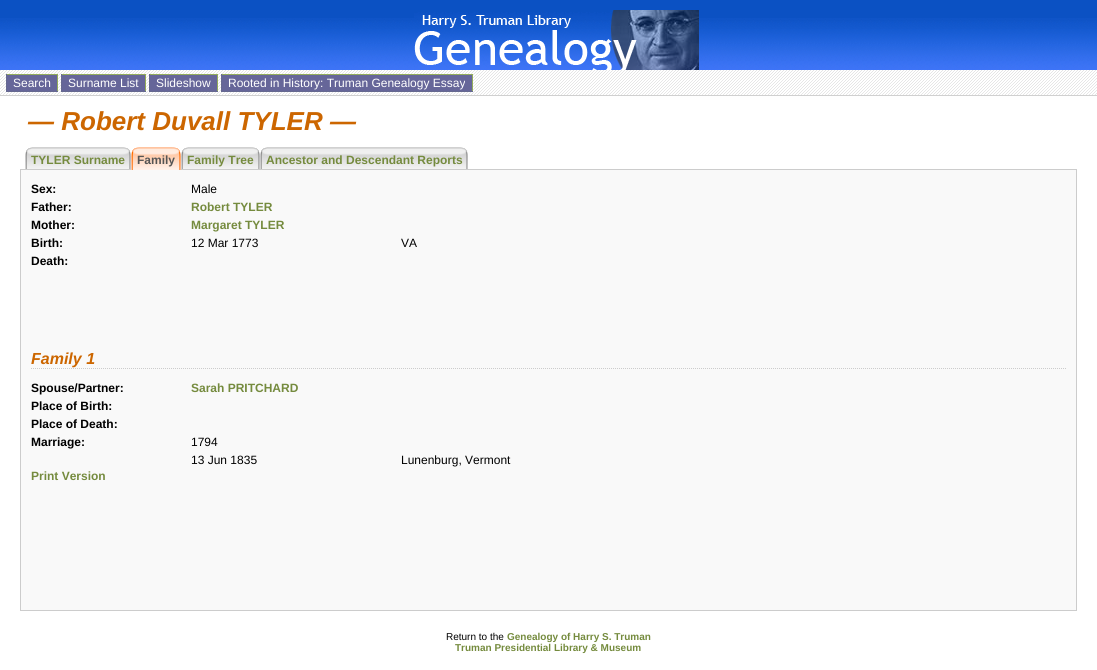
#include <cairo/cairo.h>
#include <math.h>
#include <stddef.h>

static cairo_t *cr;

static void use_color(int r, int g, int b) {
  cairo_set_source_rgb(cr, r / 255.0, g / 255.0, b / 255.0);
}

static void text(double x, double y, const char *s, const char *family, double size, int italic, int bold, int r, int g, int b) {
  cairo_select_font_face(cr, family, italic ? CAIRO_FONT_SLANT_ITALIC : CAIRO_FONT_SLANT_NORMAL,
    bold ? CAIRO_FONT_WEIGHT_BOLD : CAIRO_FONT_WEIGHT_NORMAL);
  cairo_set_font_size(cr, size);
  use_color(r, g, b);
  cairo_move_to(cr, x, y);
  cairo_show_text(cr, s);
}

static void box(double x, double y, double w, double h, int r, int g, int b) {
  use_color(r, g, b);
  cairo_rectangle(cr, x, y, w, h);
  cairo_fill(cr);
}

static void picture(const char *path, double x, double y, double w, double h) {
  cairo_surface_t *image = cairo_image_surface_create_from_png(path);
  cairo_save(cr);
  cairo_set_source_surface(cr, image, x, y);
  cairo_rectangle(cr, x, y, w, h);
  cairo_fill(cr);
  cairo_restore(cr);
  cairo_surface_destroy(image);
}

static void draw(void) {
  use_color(255, 255, 255);
  cairo_paint(cr);
  box(0, 0, 1097, 18, 11, 81, 195);
  picture("img_01.png", 0, 18, 1097, 52);
  picture("img_02.png", 414, 10, 285, 60);
  picture("img_03.png", 0, 70, 1097, 25);
  box(0, 95, 1097, 1, 208, 208, 208);
  box(7, 75, 50, 16, 102, 102, 153);
  box(6, 74, 52, 1, 147, 172, 92);
  box(57, 74, 1, 18, 147, 172, 92);
  box(6, 91, 52, 1, 102, 105, 144);
  box(6, 74, 1, 18, 102, 105, 144);
  box(62, 75, 83, 16, 102, 102, 153);
  box(61, 74, 85, 1, 147, 172, 92);
  box(145, 74, 1, 18, 147, 172, 92);
  box(61, 91, 85, 1, 102, 105, 144);
  box(61, 74, 1, 18, 102, 105, 144);
  box(150, 75, 67, 16, 102, 102, 153);
  box(149, 74, 69, 1, 147, 172, 92);
  box(217, 74, 1, 18, 147, 172, 92);
  box(149, 91, 69, 1, 102, 105, 144);
  box(149, 74, 1, 18, 102, 105, 144);
  box(222, 75, 250, 16, 102, 102, 153);
  box(221, 74, 252, 1, 147, 172, 92);
  box(472, 74, 1, 18, 147, 172, 92);
  box(221, 91, 252, 1, 102, 105, 144);
  box(221, 74, 1, 18, 102, 105, 144);
  box(20, 169, 1057, 1, 204, 204, 204);
  picture("img_04.png", 32, 147, 99, 22);
  picture("img_05.png", 25, 147, 7, 22);
  picture("img_06.png", 139, 147, 42, 23);
  picture("img_07.png", 131, 147, 8, 23);
  picture("img_08.png", 188, 147, 72, 22);
  picture("img_05.png", 181, 147, 7, 22);
  picture("img_09.png", 267, 147, 201, 22);
  picture("img_05.png", 260, 147, 7, 22);
  box(21, 170, 1055, 440, 249, 249, 249);
  box(1076, 170, 1, 441, 204, 204, 204);
  box(20, 610, 1057, 1, 204, 204, 204);
  box(20, 170, 1, 441, 204, 204, 204);
  cairo_new_path(cr);
  cairo_move_to(cr, 31, 368.5);
  cairo_line_to(cr, 1066, 368.5);
  cairo_set_line_width(cr, 1);
  cairo_set_dash(cr, (double[]){1, 1}, 2, 0);
  cairo_stroke(cr);
  text(13, 87, "Search", "Liberation Sans", 12, 0, 0, 255, 255, 255);
  text(68, 87, "Surname List", "Liberation Sans", 12, 0, 0, 255, 255, 255);
  text(156, 87, "Slideshow", "Liberation Sans", 12, 0, 0, 255, 255, 255);
  text(228, 87, "Rooted in History: Truman Genealogy Essay", "Liberation Sans", 12, 0, 0, 255, 255, 255);
  text(28, 130, "— Robert Duvall TYLER —", "Liberation Sans", 26, 1, 1, 204, 102, 0);
  text(31, 164, "TYLER Surname", "Liberation Sans", 12, 0, 1, 117, 139, 62);
  text(137, 164, "Family", "Liberation Sans", 12, 0, 1, 85, 85, 85);
  text(187, 164, "Family Tree", "Liberation Sans", 12, 0, 1, 117, 139, 62);
  text(266, 164, "Ancestor and Descendant Reports", "Liberation Sans", 12, 0, 1, 117, 139, 62);
  text(31, 193, "Sex:", "Liberation Sans", 12, 0, 1, 0, 0, 0);
  text(191, 193, "Male", "Liberation Sans", 12, 0, 0, 0, 0, 0);
  text(31, 211, "Father:", "Liberation Sans", 12, 0, 1, 0, 0, 0);
  text(191, 211, "Robert TYLER", "Liberation Sans", 12, 0, 1, 117, 139, 62);
  text(31, 229, "Mother:", "Liberation Sans", 12, 0, 1, 0, 0, 0);
  text(191, 229, "Margaret TYLER", "Liberation Sans", 12, 0, 1, 117, 139, 62);
  text(31, 247, "Birth:", "Liberation Sans", 12, 0, 1, 0, 0, 0);
  text(191, 247, "12 Mar 1773", "Liberation Sans", 12, 0, 0, 0, 0, 0);
  text(401, 247, "VA", "Liberation Sans", 12, 0, 0, 0, 0, 0);
  text(31, 265, "Death:", "Liberation Sans", 12, 0, 1, 0, 0, 0);
  text(31, 364, "Family 1", "Liberation Sans", 16, 1, 1, 204, 102, 0);
  text(31, 392, "Spouse/Partner:", "Liberation Sans", 12, 0, 1, 0, 0, 0);
  text(191, 392, "Sarah PRITCHARD", "Liberation Sans", 12, 0, 1, 117, 139, 62);
  text(31, 410, "Place of Birth:", "Liberation Sans", 12, 0, 1, 0, 0, 0);
  text(31, 428, "Place of Death:", "Liberation Sans", 12, 0, 1, 0, 0, 0);
  text(31, 446, "Marriage:", "Liberation Sans", 12, 0, 1, 0, 0, 0);
  text(191, 446, "1794", "Liberation Sans", 12, 0, 0, 0, 0, 0);
  text(191, 464, "13 Jun 1835", "Liberation Sans", 12, 0, 0, 0, 0, 0);
  text(401, 464, "Lunenburg, Vermont", "Liberation Sans", 12, 0, 0, 0, 0, 0);
  text(31, 480, "Print Version", "Liberation Sans", 12, 0, 1, 117, 139, 62);
  text(446, 640, "Return to the", "Liberation Sans", 10, 0, 0, 0, 0, 0);
  text(507, 640, "Genealogy of Harry S. Truman", "Liberation Sans", 10, 0, 1, 117, 139, 62);
  text(455, 651, "Truman Presidential Library & Museum", "Liberation Sans", 10, 0, 1, 117, 139, 62);
}

int main(void) {
  cairo_surface_t *surface = cairo_image_surface_create(CAIRO_FORMAT_RGB24, 1097, 670);
  cr = cairo_create(surface);
  cairo_font_options_t *options = cairo_font_options_create();
  cairo_font_options_set_hint_metrics(options, CAIRO_HINT_METRICS_OFF);
  cairo_font_options_set_hint_style(options, CAIRO_HINT_STYLE_NONE);
  cairo_set_font_options(cr, options);
  cairo_set_miter_limit(cr, 4);
  draw();
  cairo_surface_write_to_png(surface, "out.png");
  cairo_font_options_destroy(options);
  cairo_destroy(cr);
  cairo_surface_destroy(surface);
  return 0;
}
